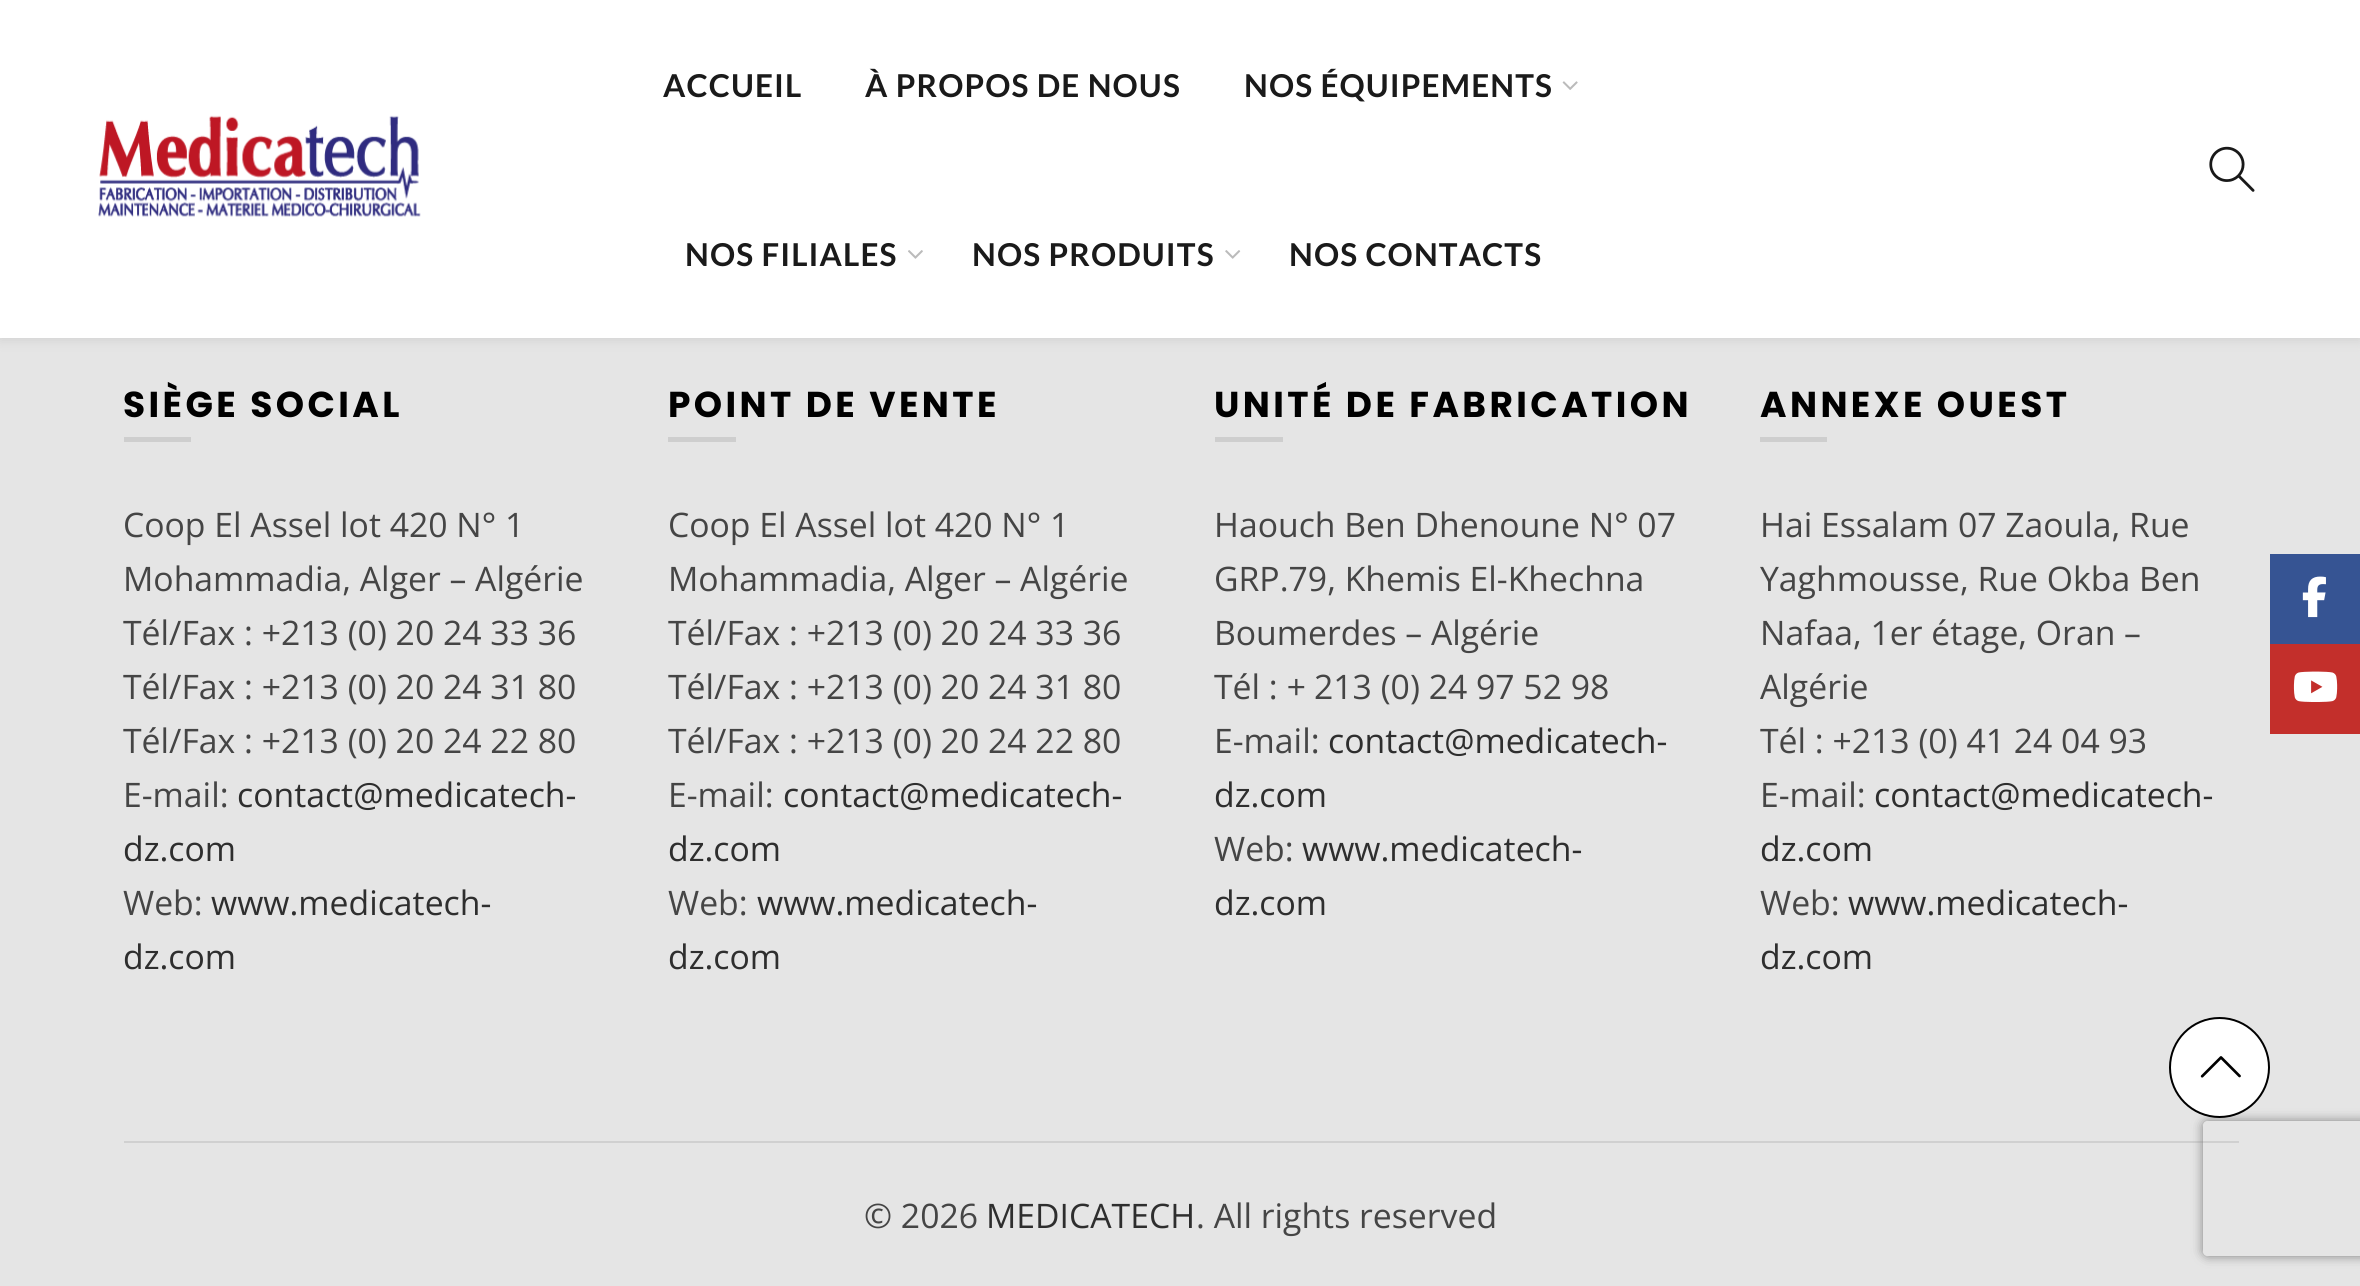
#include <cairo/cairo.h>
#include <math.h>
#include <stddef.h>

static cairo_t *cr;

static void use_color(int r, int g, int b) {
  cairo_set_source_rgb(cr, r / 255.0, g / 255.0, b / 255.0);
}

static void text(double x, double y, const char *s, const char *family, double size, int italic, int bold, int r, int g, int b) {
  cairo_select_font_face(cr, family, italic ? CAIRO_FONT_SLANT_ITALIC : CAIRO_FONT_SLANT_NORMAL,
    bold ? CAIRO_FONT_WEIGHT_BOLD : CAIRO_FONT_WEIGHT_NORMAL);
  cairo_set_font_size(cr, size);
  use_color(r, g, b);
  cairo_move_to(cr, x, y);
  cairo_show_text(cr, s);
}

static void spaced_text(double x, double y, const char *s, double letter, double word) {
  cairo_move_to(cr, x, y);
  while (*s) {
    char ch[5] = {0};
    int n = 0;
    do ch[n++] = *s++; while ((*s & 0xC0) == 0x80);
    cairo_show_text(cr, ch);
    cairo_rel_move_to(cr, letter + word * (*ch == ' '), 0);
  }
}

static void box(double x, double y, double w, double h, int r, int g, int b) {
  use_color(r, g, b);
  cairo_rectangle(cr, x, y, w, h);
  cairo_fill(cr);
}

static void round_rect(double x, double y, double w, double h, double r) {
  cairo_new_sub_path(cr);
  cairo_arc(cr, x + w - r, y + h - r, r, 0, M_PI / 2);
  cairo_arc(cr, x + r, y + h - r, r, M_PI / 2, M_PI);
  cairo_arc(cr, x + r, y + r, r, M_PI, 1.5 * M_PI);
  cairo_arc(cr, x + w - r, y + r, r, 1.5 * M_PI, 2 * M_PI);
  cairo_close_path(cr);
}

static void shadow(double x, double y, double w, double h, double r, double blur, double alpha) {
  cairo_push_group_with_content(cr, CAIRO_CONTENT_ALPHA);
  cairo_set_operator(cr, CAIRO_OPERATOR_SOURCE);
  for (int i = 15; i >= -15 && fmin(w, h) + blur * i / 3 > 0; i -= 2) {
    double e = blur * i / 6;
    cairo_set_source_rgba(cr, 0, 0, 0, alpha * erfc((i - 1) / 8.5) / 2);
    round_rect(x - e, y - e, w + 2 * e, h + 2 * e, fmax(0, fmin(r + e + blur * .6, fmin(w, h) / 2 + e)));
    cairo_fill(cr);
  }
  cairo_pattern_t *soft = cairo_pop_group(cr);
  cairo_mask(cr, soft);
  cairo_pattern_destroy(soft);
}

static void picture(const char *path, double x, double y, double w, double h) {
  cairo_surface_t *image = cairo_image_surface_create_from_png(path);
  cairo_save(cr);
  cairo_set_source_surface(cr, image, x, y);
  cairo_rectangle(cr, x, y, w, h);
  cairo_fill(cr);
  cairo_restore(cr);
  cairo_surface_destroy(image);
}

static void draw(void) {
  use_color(229, 229, 229);
  cairo_paint(cr);
  use_color(190, 190, 190);
  shadow(0, 2, 2360, 338, 0, 5.5, 0.5);
  box(0, 0, 2360, 338, 255, 255, 255);
  picture("img_01.png", 98, 115, 323, 102);
  picture("img_02.png", 1562, 81, 16, 9);
  picture("img_03.png", 908, 250, 15, 9);
  picture("img_04.png", 1225, 250, 16, 9);
  picture("img_05.png", 2209, 146, 46, 46);
  box(124, 437, 67, 5, 206, 206, 206);
  box(668, 437, 68, 5, 206, 206, 206);
  box(1215, 437, 68, 5, 206, 206, 206);
  box(1760, 437, 67, 5, 206, 206, 206);
  box(124, 1141, 2115, 2, 208, 208, 208);
  box(2270, 554, 90, 90, 54, 84, 147);
  picture("img_06.png", 2302, 576, 24, 42);
  box(2270, 644, 90, 90, 195, 47, 43);
  picture("img_07.png", 2293, 671, 45, 31);
  cairo_save(cr);
  cairo_set_fill_rule(cr, CAIRO_FILL_RULE_EVEN_ODD);
  cairo_new_path(cr);
  cairo_move_to(cr, 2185, 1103);
  cairo_line_to(cr, 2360, 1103);
  cairo_line_to(cr, 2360, 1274);
  cairo_line_to(cr, 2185, 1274);
  cairo_close_path(cr);
  cairo_move_to(cr, 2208, 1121);
  cairo_line_to(cr, 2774, 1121);
  cairo_curve_to(cr, 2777, 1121, 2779, 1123, 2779, 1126);
  cairo_line_to(cr, 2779, 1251);
  cairo_curve_to(cr, 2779, 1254, 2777, 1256, 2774, 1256);
  cairo_line_to(cr, 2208, 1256);
  cairo_curve_to(cr, 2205, 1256, 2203, 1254, 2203, 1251);
  cairo_line_to(cr, 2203, 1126);
  cairo_curve_to(cr, 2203, 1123, 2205, 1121, 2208, 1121);
  cairo_close_path(cr);
  cairo_clip(cr);
  use_color(128, 128, 128);
  shadow(2203, 1121, 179, 135, 5, 5.5, 1);
  cairo_restore(cr);
  use_color(255, 255, 255);
  cairo_arc(cr, 2219.5, 1067.5, 49.5, 0, 2 * M_PI);
  cairo_fill_preserve(cr);
  use_color(0, 0, 0);
  cairo_stroke(cr);
  picture("img_08.png", 2200, 1056, 41, 22);
  cairo_select_font_face(cr, "Lato", CAIRO_FONT_SLANT_NORMAL, CAIRO_FONT_WEIGHT_BOLD);
  cairo_set_font_size(cr, 31.5);
  use_color(26, 26, 26);
  spaced_text(663, 97, "ACCUEIL", 1.1, 0);
  spaced_text(865, 97, "À PROPOS DE NOUS", 1.1, 0);
  spaced_text(1244, 97, "NOS ÉQUIPEMENTS", 1.1, 0);
  spaced_text(685, 266, "NOS FILIALES", 1.1, 0);
  spaced_text(972, 266, "NOS PRODUITS", 1.1, 0);
  spaced_text(1289, 266, "NOS CONTACTS", 1.1, 0);
  cairo_select_font_face(cr, "Poppins", CAIRO_FONT_SLANT_NORMAL, CAIRO_FONT_WEIGHT_BOLD);
  cairo_set_font_size(cr, 36);
  use_color(0, 0, 0);
  spaced_text(123, 417, "SIÈGE SOCIAL", 3.4, 0);
  text(123, 537, "Coop El Assel lot 420 N° 1", "Open Sans", 33.75, 0, 0, 69, 69, 69);
  text(123, 591, "Mohammadia, Alger – Algérie", "Open Sans", 33.75, 0, 0, 69, 69, 69);
  text(123, 645, "Tél/Fax : +213 (0) 20 24 33 36", "Open Sans", 33.75, 0, 0, 69, 69, 69);
  text(123, 699, "Tél/Fax : +213 (0) 20 24 31 80", "Open Sans", 33.75, 0, 0, 69, 69, 69);
  text(123, 753, "Tél/Fax : +213 (0) 20 24 22 80", "Open Sans", 33.75, 0, 0, 69, 69, 69);
  text(123, 807, "E-mail:", "Open Sans", 33.75, 0, 0, 69, 69, 69);
  text(237, 807, "contact@medicatech-", "Open Sans", 33.75, 0, 0, 46, 46, 46);
  text(123, 861, "dz.com", "Open Sans", 33.75, 0, 0, 46, 46, 46);
  text(123, 915, "Web:", "Open Sans", 33.75, 0, 0, 69, 69, 69);
  text(211, 915, "www.medicatech-", "Open Sans", 33.75, 0, 0, 46, 46, 46);
  text(123, 969, "dz.com", "Open Sans", 33.75, 0, 0, 46, 46, 46);
  cairo_select_font_face(cr, "Poppins", CAIRO_FONT_SLANT_NORMAL, CAIRO_FONT_WEIGHT_BOLD);
  cairo_set_font_size(cr, 36);
  use_color(0, 0, 0);
  spaced_text(668, 417, "POINT DE VENTE", 3.4, 0);
  text(668, 537, "Coop El Assel lot 420 N° 1", "Open Sans", 33.75, 0, 0, 69, 69, 69);
  text(668, 591, "Mohammadia, Alger – Algérie", "Open Sans", 33.75, 0, 0, 69, 69, 69);
  text(668, 645, "Tél/Fax : +213 (0) 20 24 33 36", "Open Sans", 33.75, 0, 0, 69, 69, 69);
  text(668, 699, "Tél/Fax : +213 (0) 20 24 31 80", "Open Sans", 33.75, 0, 0, 69, 69, 69);
  text(668, 753, "Tél/Fax : +213 (0) 20 24 22 80", "Open Sans", 33.75, 0, 0, 69, 69, 69);
  text(668, 807, "E-mail:", "Open Sans", 33.75, 0, 0, 69, 69, 69);
  text(783, 807, "contact@medicatech-", "Open Sans", 33.75, 0, 0, 46, 46, 46);
  text(668, 861, "dz.com", "Open Sans", 33.75, 0, 0, 46, 46, 46);
  text(668, 915, "Web:", "Open Sans", 33.75, 0, 0, 69, 69, 69);
  text(757, 915, "www.medicatech-", "Open Sans", 33.75, 0, 0, 46, 46, 46);
  text(668, 969, "dz.com", "Open Sans", 33.75, 0, 0, 46, 46, 46);
  cairo_select_font_face(cr, "Poppins", CAIRO_FONT_SLANT_NORMAL, CAIRO_FONT_WEIGHT_BOLD);
  cairo_set_font_size(cr, 36);
  use_color(0, 0, 0);
  spaced_text(1214, 417, "UNITÉ DE FABRICATION", 3.4, 0);
  text(1214, 537, "Haouch Ben Dhenoune N° 07", "Open Sans", 33.75, 0, 0, 69, 69, 69);
  text(1214, 591, "GRP.79, Khemis El-Khechna", "Open Sans", 33.75, 0, 0, 69, 69, 69);
  text(1214, 645, "Boumerdes – Algérie", "Open Sans", 33.75, 0, 0, 69, 69, 69);
  text(1214, 699, "Tél :", "Open Sans", 33.75, 0, 0, 69, 69, 69);
  text(1286, 699, "+", "Open Sans", 33.75, 1, 0, 69, 69, 69);
  text(1314, 699, "213 (0) 24 97 52 98", "Open Sans", 33.75, 0, 0, 69, 69, 69);
  text(1214, 753, "E-mail:", "Open Sans", 33.75, 0, 0, 69, 69, 69);
  text(1328, 753, "contact@medicatech-", "Open Sans", 33.75, 0, 0, 46, 46, 46);
  text(1214, 807, "dz.com", "Open Sans", 33.75, 0, 0, 46, 46, 46);
  text(1214, 861, "Web:", "Open Sans", 33.75, 0, 0, 69, 69, 69);
  text(1302, 861, "www.medicatech-", "Open Sans", 33.75, 0, 0, 46, 46, 46);
  text(1214, 915, "dz.com", "Open Sans", 33.75, 0, 0, 46, 46, 46);
  cairo_select_font_face(cr, "Poppins", CAIRO_FONT_SLANT_NORMAL, CAIRO_FONT_WEIGHT_BOLD);
  cairo_set_font_size(cr, 36);
  use_color(0, 0, 0);
  spaced_text(1760, 417, "ANNEXE OUEST", 3.4, 0);
  text(1760, 537, "Hai Essalam 07 Zaoula, Rue", "Open Sans", 33.75, 0, 0, 69, 69, 69);
  text(1760, 591, "Yaghmousse, Rue Okba Ben", "Open Sans", 33.75, 0, 0, 69, 69, 69);
  text(1760, 645, "Nafaa, 1er étage, Oran –", "Open Sans", 33.75, 0, 0, 69, 69, 69);
  text(1760, 699, "Algérie", "Open Sans", 33.75, 0, 0, 69, 69, 69);
  text(1760, 753, "Tél : +213 (0) 41 24 04 93", "Open Sans", 33.75, 0, 0, 69, 69, 69);
  text(1760, 807, "E-mail:", "Open Sans", 33.75, 0, 0, 69, 69, 69);
  text(1874, 807, "contact@medicatech-", "Open Sans", 33.75, 0, 0, 46, 46, 46);
  text(1760, 861, "dz.com", "Open Sans", 33.75, 0, 0, 46, 46, 46);
  text(1760, 915, "Web:", "Open Sans", 33.75, 0, 0, 69, 69, 69);
  text(1848, 915, "www.medicatech-", "Open Sans", 33.75, 0, 0, 46, 46, 46);
  text(1760, 969, "dz.com", "Open Sans", 33.75, 0, 0, 46, 46, 46);
  text(864, 1228, "© 2026", "Open Sans", 33.75, 0, 0, 69, 69, 69);
  text(986, 1228, "MEDICATECH", "Open Sans", 33.75, 0, 0, 46, 46, 46);
  text(1196, 1228, ". All rights reserved", "Open Sans", 33.75, 0, 0, 69, 69, 69);
}

int main(void) {
  cairo_surface_t *surface = cairo_image_surface_create(CAIRO_FORMAT_RGB24, 2360, 1286);
  cr = cairo_create(surface);
  cairo_font_options_t *options = cairo_font_options_create();
  cairo_font_options_set_hint_metrics(options, CAIRO_HINT_METRICS_OFF);
  cairo_font_options_set_hint_style(options, CAIRO_HINT_STYLE_NONE);
  cairo_set_font_options(cr, options);
  cairo_set_miter_limit(cr, 4);
  draw();
  cairo_surface_write_to_png(surface, "out.png");
  cairo_font_options_destroy(options);
  cairo_destroy(cr);
  cairo_surface_destroy(surface);
  return 0;
}
